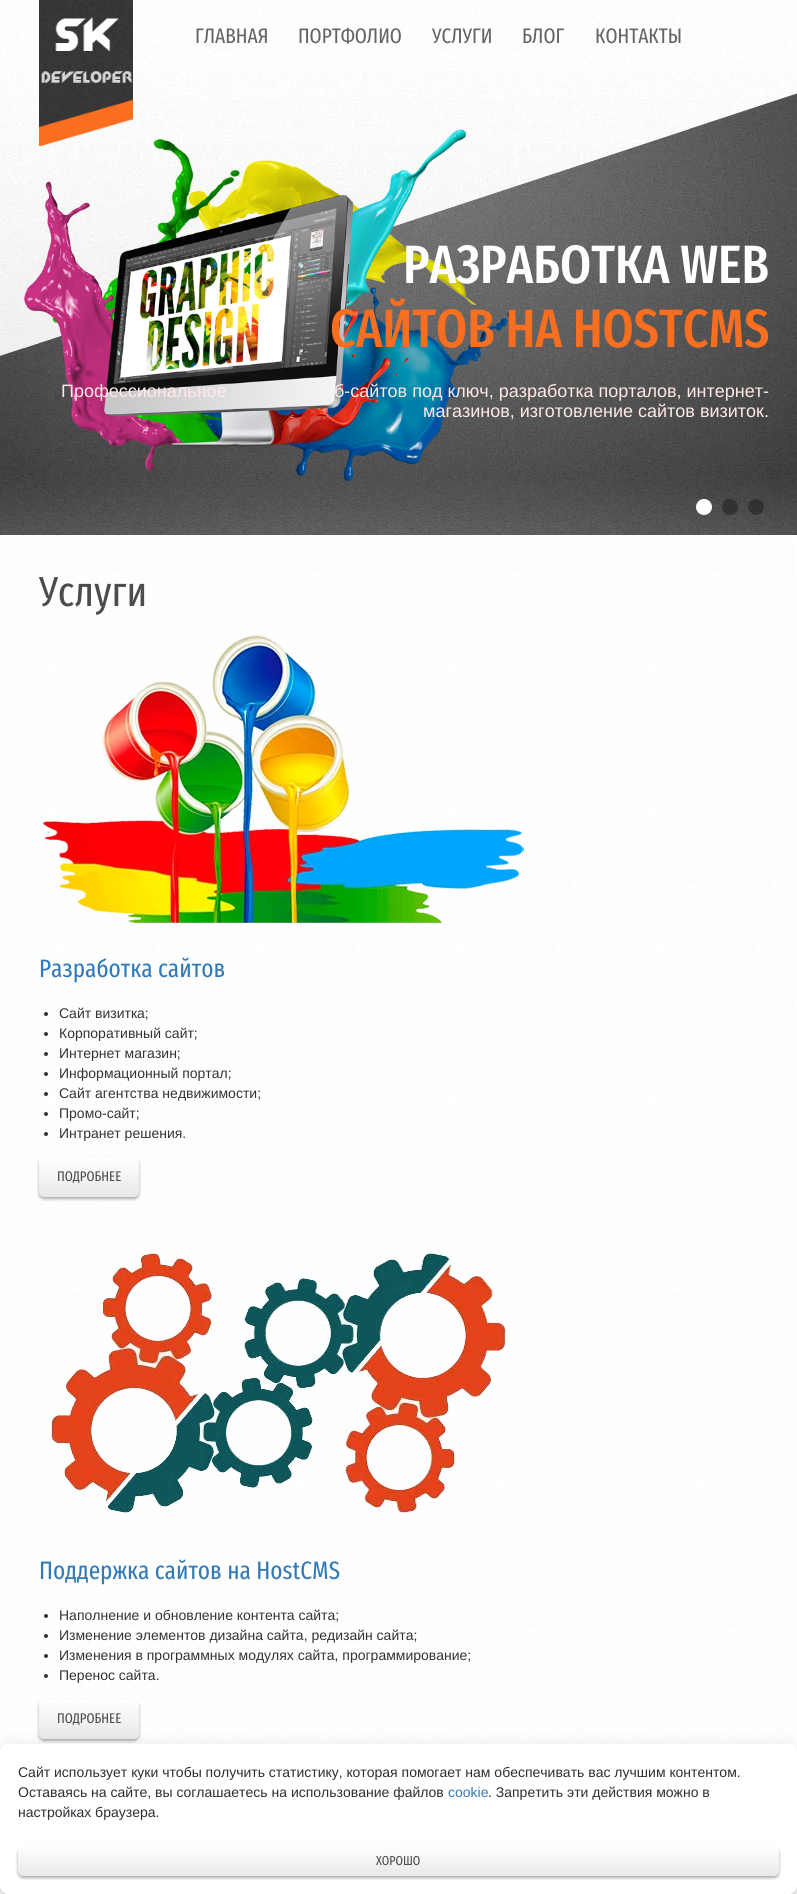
#include <cairo/cairo.h>
#include <math.h>
#include <stddef.h>

static cairo_t *cr;

static void use_color(int r, int g, int b) {
  cairo_set_source_rgb(cr, r / 255.0, g / 255.0, b / 255.0);
}

static void text(double x, double y, const char *s, const char *family, double size, int italic, int bold, int r, int g, int b) {
  cairo_select_font_face(cr, family, italic ? CAIRO_FONT_SLANT_ITALIC : CAIRO_FONT_SLANT_NORMAL,
    bold ? CAIRO_FONT_WEIGHT_BOLD : CAIRO_FONT_WEIGHT_NORMAL);
  cairo_set_font_size(cr, size);
  use_color(r, g, b);
  cairo_move_to(cr, x, y);
  cairo_show_text(cr, s);
}

static void round_rect(double x, double y, double w, double h, double r) {
  cairo_new_sub_path(cr);
  cairo_arc(cr, x + w - r, y + h - r, r, 0, M_PI / 2);
  cairo_arc(cr, x + r, y + h - r, r, M_PI / 2, M_PI);
  cairo_arc(cr, x + r, y + r, r, M_PI, 1.5 * M_PI);
  cairo_arc(cr, x + w - r, y + r, r, 1.5 * M_PI, 2 * M_PI);
  cairo_close_path(cr);
}

static void shadow(double x, double y, double w, double h, double r, double blur, double alpha) {
  cairo_push_group_with_content(cr, CAIRO_CONTENT_ALPHA);
  cairo_set_operator(cr, CAIRO_OPERATOR_SOURCE);
  for (int i = 15; i >= -15 && fmin(w, h) + blur * i / 3 > 0; i -= 2) {
    double e = blur * i / 6;
    cairo_set_source_rgba(cr, 0, 0, 0, alpha * erfc((i - 1) / 8.5) / 2);
    round_rect(x - e, y - e, w + 2 * e, h + 2 * e, fmax(0, fmin(r + e + blur * .6, fmin(w, h) / 2 + e)));
    cairo_fill(cr);
  }
  cairo_pattern_t *soft = cairo_pop_group(cr);
  cairo_mask(cr, soft);
  cairo_pattern_destroy(soft);
}

static void picture(const char *path, double x, double y, double w, double h) {
  cairo_surface_t *image = cairo_image_surface_create_from_png(path);
  cairo_save(cr);
  cairo_set_source_surface(cr, image, x, y);
  cairo_rectangle(cr, x, y, w, h);
  cairo_fill(cr);
  cairo_restore(cr);
  cairo_surface_destroy(image);
}

static void draw(void) {
  cairo_pattern_t *gradient;
  use_color(255, 255, 255);
  cairo_paint(cr);
  picture("img_01.png", 0, 535, 796, 37);
  picture("img_03.png", 0, 0, 797, 535);
  picture("img_04.png", 24, 129, 750, 352);
  picture("img_05.png", 24, 129, 492, 352);
  picture("img_02.png", 39, 0, 94, 146);
  use_color(255, 255, 255);
  cairo_arc(cr, 704, 507, 8, 0, 2 * M_PI);
  cairo_fill(cr);
  cairo_set_source_rgba(cr, 0, 0, 0, 0.33);
  cairo_arc(cr, 730, 507, 8, 0, 2 * M_PI);
  cairo_fill(cr);
  cairo_arc(cr, 756, 507, 8, 0, 2 * M_PI);
  cairo_fill(cr);
  picture("img_06.png", 0, 572, 797, 1318);
  picture("img_07.png", 43, 635, 481, 288);
  use_color(51, 51, 51);
  cairo_arc(cr, 46, 1014, 2, 0, 2 * M_PI);
  cairo_fill(cr);
  cairo_arc(cr, 46, 1034, 2, 0, 2 * M_PI);
  cairo_fill(cr);
  cairo_arc(cr, 46, 1054, 2, 0, 2 * M_PI);
  cairo_fill(cr);
  cairo_arc(cr, 46, 1074, 2, 0, 2 * M_PI);
  cairo_fill(cr);
  cairo_arc(cr, 46, 1094, 2, 0, 2 * M_PI);
  cairo_fill(cr);
  cairo_arc(cr, 46, 1114, 2, 0, 2 * M_PI);
  cairo_fill(cr);
  cairo_arc(cr, 46, 1134, 2, 0, 2 * M_PI);
  cairo_fill(cr);
  use_color(0, 0, 0);
  shadow(39, 1159, 100, 40, 5, 1.5, 0.33);
  gradient = cairo_pattern_create_linear(89, 1157, 89, 1197);
  cairo_pattern_add_color_stop_rgba(gradient, 0, 1, 1, 1, 1);
  cairo_pattern_add_color_stop_rgba(gradient, 1, 0.91, 0.91, 0.91, 1);
  cairo_set_source(cr, gradient);
  cairo_pattern_destroy(gradient);
  round_rect(39, 1157, 100, 40, 5);
  cairo_fill(cr);
  picture("img_08.png", 51, 1253, 455, 260);
  use_color(51, 51, 51);
  cairo_arc(cr, 46, 1616, 2, 0, 2 * M_PI);
  cairo_fill(cr);
  cairo_arc(cr, 46, 1636, 2, 0, 2 * M_PI);
  cairo_fill(cr);
  cairo_arc(cr, 46, 1656, 2, 0, 2 * M_PI);
  cairo_fill(cr);
  cairo_arc(cr, 46, 1676, 2, 0, 2 * M_PI);
  cairo_fill(cr);
  use_color(0, 0, 0);
  shadow(39, 1701, 100, 40, 5, 1.5, 0.33);
  gradient = cairo_pattern_create_linear(89, 1699, 89, 1739);
  cairo_pattern_add_color_stop_rgba(gradient, 0, 1, 1, 1, 1);
  cairo_pattern_add_color_stop_rgba(gradient, 1, 0.91, 0.91, 0.91, 1);
  cairo_set_source(cr, gradient);
  cairo_pattern_destroy(gradient);
  round_rect(39, 1699, 100, 40, 5);
  cairo_fill(cr);
  use_color(154, 152, 152);
  shadow(0, 1746, 797, 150, 8, 1, 0.35);
  shadow(0, 1748, 797, 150, 8, 8, 0.35);
  use_color(255, 255, 255);
  round_rect(0, 1744, 797, 150, 8);
  cairo_fill(cr);
  use_color(0, 0, 0);
  shadow(18, 1848, 761, 30, 5, 1.5, 0.33);
  gradient = cairo_pattern_create_linear(399, 1846, 399, 1876);
  cairo_pattern_add_color_stop_rgba(gradient, 0, 1, 1, 1, 1);
  cairo_pattern_add_color_stop_rgba(gradient, 1, 0.91, 0.91, 0.91, 1);
  cairo_set_source(cr, gradient);
  cairo_pattern_destroy(gradient);
  round_rect(18, 1846, 761, 30, 5);
  cairo_fill(cr);
  text(195, 43, "ГЛАВНАЯ", "Fira Sans Extra Condensed", 21, 0, 0, 100, 100, 100);
  text(298, 43, "ПОРТФОЛИО", "Fira Sans Extra Condensed", 21, 0, 0, 100, 100, 100);
  text(432, 43, "УСЛУГИ", "Fira Sans Extra Condensed", 21, 0, 0, 100, 100, 100);
  text(522, 43, "БЛОГ", "Fira Sans Extra Condensed", 21, 0, 0, 100, 100, 100);
  text(595, 43, "КОНТАКТЫ", "Fira Sans Extra Condensed", 21, 0, 0, 100, 100, 100);
  text(403, 283, "РАЗРАБОТКА WEB", "Fira Sans Extra Condensed Medium", 54, 0, 0, 255, 255, 255);
  text(330, 347, "САЙТОВ НА HOSTCMS", "Fira Sans Extra Condensed Medium", 54, 0, 0, 250, 110, 32);
  text(61, 397, "Профессиональное", "Liberation Sans", 18, 0, 0, 255, 233, 230);
  text(334, 397, "б-сайтов под ключ, разработка порталов, интернет-", "Liberation Sans", 18, 0, 0, 255, 233, 230);
  text(423, 417, "магазинов, изготовление сайтов визиток.", "Liberation Sans", 18, 0, 0, 255, 233, 230);
  text(39, 606, "Услуги", "Fira Sans Extra Condensed", 42, 0, 0, 76, 76, 76);
  text(39, 977, "Разработка сайтов", "Fira Sans Extra Condensed", 25.25, 0, 0, 51, 122, 183);
  text(59, 1018, "Сайт визитка;", "Liberation Sans", 14, 0, 0, 51, 51, 51);
  text(59, 1038, "Корпоративный сайт;", "Liberation Sans", 14, 0, 0, 51, 51, 51);
  text(59, 1058, "Интернет магазин;", "Liberation Sans", 14, 0, 0, 51, 51, 51);
  text(59, 1078, "Информационный портал;", "Liberation Sans", 14, 0, 0, 51, 51, 51);
  text(59, 1098, "Сайт агентства недвижимости;", "Liberation Sans", 14, 0, 0, 51, 51, 51);
  text(59, 1118, "Промо-сайт;", "Liberation Sans", 14, 0, 0, 51, 51, 51);
  text(59, 1138, "Интранет решения.", "Liberation Sans", 14, 0, 0, 51, 51, 51);
  text(57, 1181, "ПОДРОБНЕЕ", "Fira Sans Extra Condensed", 14, 0, 0, 76, 76, 76);
  text(39, 1579, "Поддержка сайтов на HostCMS", "Fira Sans Extra Condensed", 25.25, 0, 0, 51, 122, 183);
  text(59, 1620, "Наполнение и обновление контента сайта;", "Liberation Sans", 14, 0, 0, 51, 51, 51);
  text(59, 1640, "Изменение элементов дизайна сайта, редизайн сайта;", "Liberation Sans", 14, 0, 0, 51, 51, 51);
  text(59, 1660, "Изменения в программных модулях сайта, программирование;", "Liberation Sans", 14, 0, 0, 51, 51, 51);
  text(59, 1680, "Перенос сайта.", "Liberation Sans", 14, 0, 0, 51, 51, 51);
  text(57, 1723, "ПОДРОБНЕЕ", "Fira Sans Extra Condensed", 14, 0, 0, 76, 76, 76);
  text(18, 1777, "Сайт использует куки чтобы получить статистику, которая помогает нам обеспечивать вас лучшим контентом.", "Liberation Sans", 14, 0, 0, 43, 47, 51);
  text(18, 1797, "Оставаясь на сайте, вы соглашаетесь на использование файлов", "Liberation Sans", 14, 0, 0, 43, 47, 51);
  text(448, 1797, "cookie", "Liberation Sans", 14, 0, 0, 51, 122, 183);
  text(488, 1797, ". Запретить эти действия можно в", "Liberation Sans", 14, 0, 0, 43, 47, 51);
  text(18, 1817, "настройках браузера.", "Liberation Sans", 14, 0, 0, 43, 47, 51);
  text(376, 1865, "ХОРОШО", "Fira Sans Extra Condensed", 13, 0, 0, 76, 76, 76);
}

int main(void) {
  cairo_surface_t *surface = cairo_image_surface_create(CAIRO_FORMAT_RGB24, 797, 1894);
  cr = cairo_create(surface);
  cairo_font_options_t *options = cairo_font_options_create();
  cairo_font_options_set_hint_metrics(options, CAIRO_HINT_METRICS_OFF);
  cairo_font_options_set_hint_style(options, CAIRO_HINT_STYLE_NONE);
  cairo_set_font_options(cr, options);
  cairo_set_miter_limit(cr, 4);
  draw();
  cairo_surface_write_to_png(surface, "out.png");
  cairo_font_options_destroy(options);
  cairo_destroy(cr);
  cairo_surface_destroy(surface);
  return 0;
}
